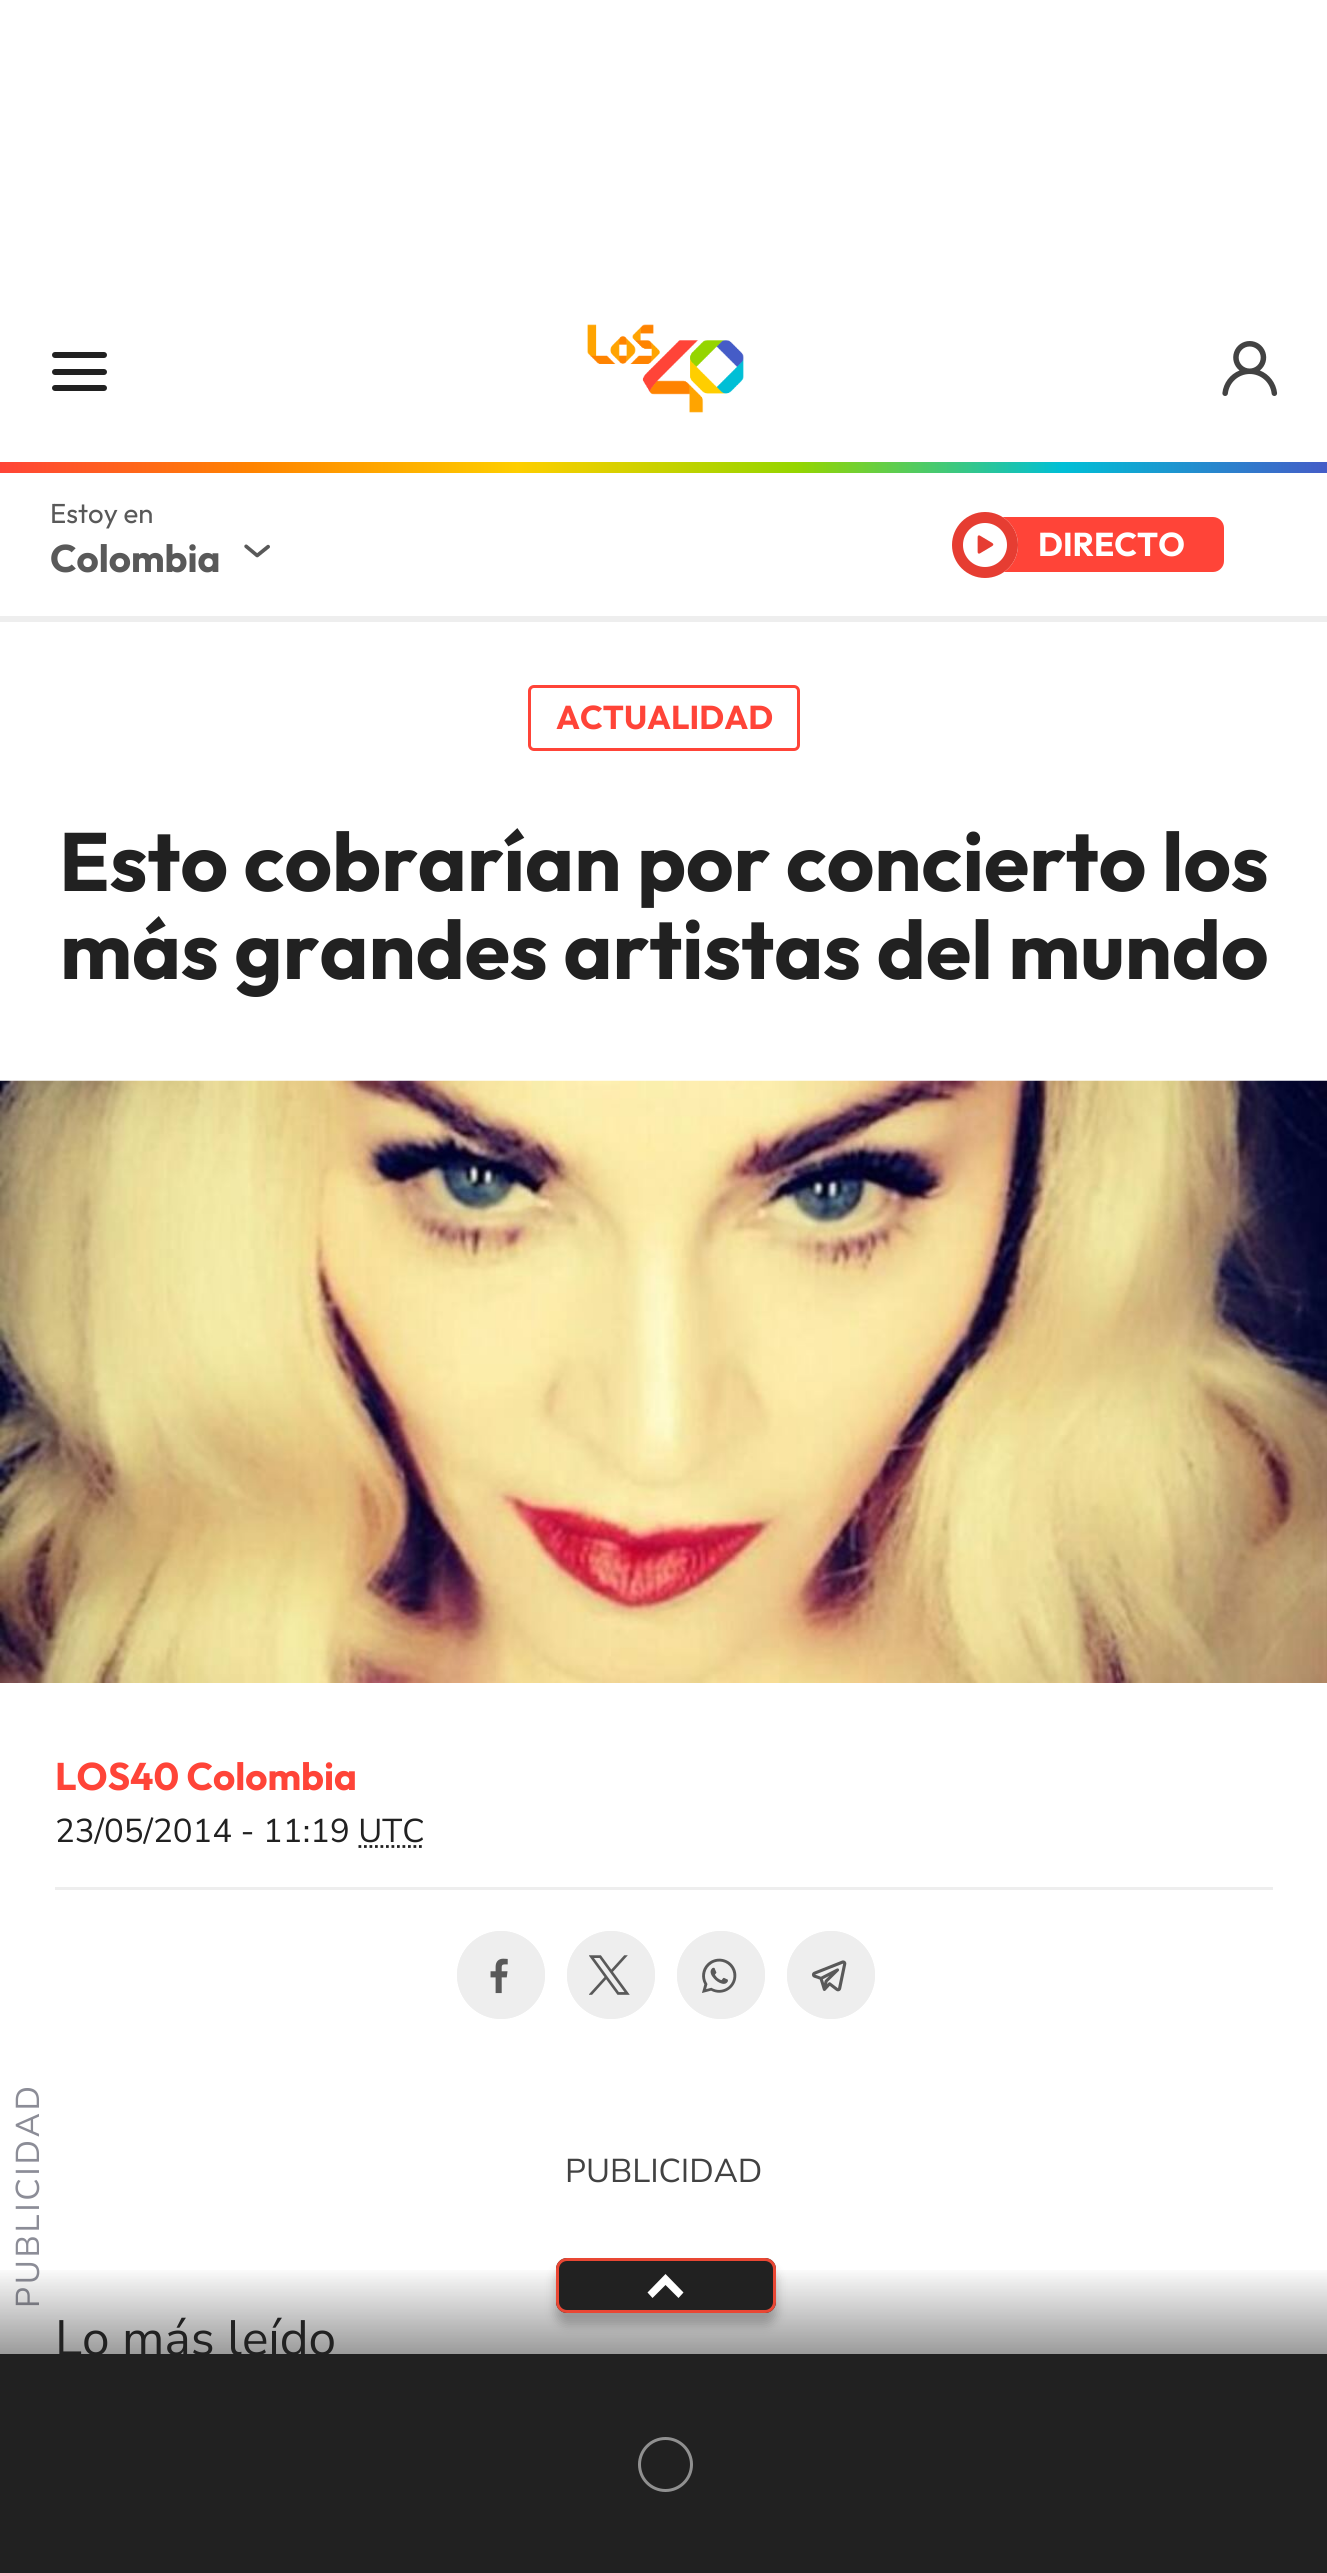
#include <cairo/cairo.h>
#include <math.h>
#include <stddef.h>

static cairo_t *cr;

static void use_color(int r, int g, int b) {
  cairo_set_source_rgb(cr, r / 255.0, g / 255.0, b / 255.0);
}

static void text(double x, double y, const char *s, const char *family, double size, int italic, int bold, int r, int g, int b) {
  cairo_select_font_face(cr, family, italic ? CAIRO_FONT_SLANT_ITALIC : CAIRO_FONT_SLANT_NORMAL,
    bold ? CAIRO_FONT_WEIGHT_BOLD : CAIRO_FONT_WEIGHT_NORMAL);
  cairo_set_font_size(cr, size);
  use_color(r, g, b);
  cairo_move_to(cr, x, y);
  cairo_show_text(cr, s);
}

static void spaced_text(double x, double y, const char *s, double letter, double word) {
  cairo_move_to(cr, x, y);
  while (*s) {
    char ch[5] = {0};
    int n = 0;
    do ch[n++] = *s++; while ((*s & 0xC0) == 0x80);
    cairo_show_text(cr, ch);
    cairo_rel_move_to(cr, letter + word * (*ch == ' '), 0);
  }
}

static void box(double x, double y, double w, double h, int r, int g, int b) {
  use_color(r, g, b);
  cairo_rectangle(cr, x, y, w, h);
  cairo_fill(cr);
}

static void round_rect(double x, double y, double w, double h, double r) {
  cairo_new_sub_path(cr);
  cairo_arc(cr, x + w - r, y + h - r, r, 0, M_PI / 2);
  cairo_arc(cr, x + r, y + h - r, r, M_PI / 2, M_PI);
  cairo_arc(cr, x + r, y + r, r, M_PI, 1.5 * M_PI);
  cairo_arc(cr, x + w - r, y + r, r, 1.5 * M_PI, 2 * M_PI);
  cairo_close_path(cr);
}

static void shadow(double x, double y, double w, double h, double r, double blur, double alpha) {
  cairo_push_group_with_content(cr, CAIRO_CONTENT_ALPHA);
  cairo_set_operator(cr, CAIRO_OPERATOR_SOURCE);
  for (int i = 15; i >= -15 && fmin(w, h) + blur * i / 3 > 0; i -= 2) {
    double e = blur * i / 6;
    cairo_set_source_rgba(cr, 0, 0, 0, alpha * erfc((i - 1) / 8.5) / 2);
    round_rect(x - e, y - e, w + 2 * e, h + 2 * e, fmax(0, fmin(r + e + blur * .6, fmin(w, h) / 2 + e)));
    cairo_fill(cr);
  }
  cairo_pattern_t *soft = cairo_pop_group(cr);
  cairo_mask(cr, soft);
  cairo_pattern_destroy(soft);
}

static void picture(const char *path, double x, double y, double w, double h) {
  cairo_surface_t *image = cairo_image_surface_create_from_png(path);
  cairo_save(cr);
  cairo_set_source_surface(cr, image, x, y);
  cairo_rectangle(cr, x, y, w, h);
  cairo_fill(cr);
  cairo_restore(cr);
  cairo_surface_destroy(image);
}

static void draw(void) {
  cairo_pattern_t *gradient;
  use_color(255, 255, 255);
  cairo_paint(cr);
  gradient = cairo_pattern_create_linear(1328, 467, 0, 468);
  cairo_pattern_add_color_stop_rgba(gradient, 0, 0.271, 0.361, 0.78, 1);
  cairo_pattern_add_color_stop_rgba(gradient, 0.2, 0, 0.749, 0.839, 1);
  cairo_pattern_add_color_stop_rgba(gradient, 0.4, 0.584, 0.835, 0, 1);
  cairo_pattern_add_color_stop_rgba(gradient, 0.61, 0.996, 0.808, 0, 1);
  cairo_pattern_add_color_stop_rgba(gradient, 0.81, 1, 0.514, 0, 1);
  cairo_pattern_add_color_stop_rgba(gradient, 1, 1, 0.267, 0.216, 1);
  cairo_set_source(cr, gradient);
  cairo_pattern_destroy(gradient);
  cairo_rectangle(cr, 0, 462, 1327, 11);
  cairo_fill(cr);
  use_color(33, 33, 33);
  round_rect(52, 369, 55, 6, 3);
  cairo_fill(cr);
  round_rect(52, 352, 55, 6, 3);
  cairo_fill(cr);
  round_rect(52, 385, 55, 6, 3);
  cairo_fill(cr);
  picture("img_01.png", 587, 324, 157, 89);
  picture("img_02.png", 1222, 341, 56, 55);
  picture("img_03.png", 244, 544, 26, 14);
  box(0, 616, 1327, 6, 238, 238, 238);
  use_color(255, 68, 56);
  cairo_new_path(cr);
  cairo_move_to(cr, 985, 517);
  cairo_line_to(cr, 1213, 517);
  cairo_curve_to(cr, 1219, 517, 1224, 522, 1224, 528);
  cairo_line_to(cr, 1224, 561);
  cairo_curve_to(cr, 1224, 567, 1219, 572, 1213, 572);
  cairo_line_to(cr, 985, 572);
  cairo_close_path(cr);
  cairo_fill(cr);
  use_color(255, 255, 255);
  cairo_arc(cr, 985, 545, 33, 0, 2 * M_PI);
  cairo_fill(cr);
  picture("img_04.png", 977, 535, 17, 19);
  cairo_arc(cr, 985, 545, 27.5, 0, 2 * M_PI);
  use_color(230, 61, 50);
  cairo_set_line_width(cr, 11);
  cairo_stroke(cr);
  round_rect(529.5, 686.5, 269, 63, 4.5);
  use_color(255, 68, 56);
  cairo_set_line_width(cr, 3);
  cairo_stroke(cr);
  picture("img_05.png", 0, 1080, 1327, 603);
  cairo_new_path(cr);
  cairo_move_to(cr, 358.5, 1846.5);
  cairo_line_to(cr, 424.5, 1846.5);
  use_color(33, 33, 33);
  cairo_set_line_width(cr, 2.8);
  cairo_set_dash(cr, (double[]){2.75, 2.75}, 2, 0);
  cairo_stroke(cr);
  box(55, 1887, 1218, 3, 238, 238, 238);
  cairo_arc(cr, 501, 1975, 44, 0, 2 * M_PI);
  cairo_fill(cr);
  picture("img_06.png", 490, 1958, 18, 36);
  cairo_arc(cr, 501, 1975, 42.5, 0, 2 * M_PI);
  cairo_set_line_width(cr, 3);
  cairo_set_dash(cr, NULL, 0, 0);
  cairo_stroke(cr);
  cairo_arc(cr, 611, 1975, 44, 0, 2 * M_PI);
  cairo_fill(cr);
  picture("img_07.png", 589, 1955, 41, 40);
  cairo_arc(cr, 611, 1975, 42.5, 0, 2 * M_PI);
  cairo_stroke(cr);
  cairo_arc(cr, 721, 1975, 44, 0, 2 * M_PI);
  cairo_fill(cr);
  picture("img_08.png", 702, 1958, 35, 35);
  cairo_arc(cr, 721, 1975, 42.5, 0, 2 * M_PI);
  cairo_stroke(cr);
  cairo_arc(cr, 831, 1975, 44, 0, 2 * M_PI);
  cairo_fill(cr);
  picture("img_09.png", 811, 1960, 36, 32);
  cairo_arc(cr, 831, 1975, 42.5, 0, 2 * M_PI);
  cairo_stroke(cr);
  box(0, 2354, 1327, 219, 33, 33, 33);
  cairo_arc(cr, 665.5, 2464.5, 26, 0, 2 * M_PI);
  use_color(144, 144, 144);
  cairo_stroke(cr);
  text(50, 523, "Estoy en", "Outfit", 27.5, 0, 0, 89, 89, 89);
  text(50, 572, "Colombia", "Outfit", 38.5, 0, 1, 89, 89, 89);
  text(1038, 556, "DIRECTO", "Outfit", 33, 0, 1, 255, 255, 255);
  text(556, 729, "ACTUALIDAD", "Outfit", 33, 0, 1, 255, 68, 56);
  text(59, 891, "Esto cobrarían por concierto los", "Outfit", 82.5, 0, 1, 33, 33, 33);
  text(60, 979, "más grandes artistas del mundo", "Outfit", 82.5, 0, 1, 33, 33, 33);
  text(55, 1790, "LOS40 Colombia", "Outfit", 38.5, 0, 1, 255, 68, 56);
  text(55, 1842, "23/05/2014 - 11:19 UTC", "Nunito Sans", 33, 0, 0, 33, 33, 33);
  use_color(140, 141, 151);
  cairo_save(cr);
  cairo_translate(cr, 39, 2308);
  cairo_rotate(cr, -90 * M_PI / 180);
  spaced_text(0, 0, "PUBLICIDAD", 2.75, 0);
  cairo_restore(cr);
  text(565, 2182, "PUBLICIDAD", "Nunito Sans", 33, 0, 0, 66, 66, 66);
  text(55, 2355, "Lo más leído", "Nunito Sans", 49.5, 0, 0, 33, 33, 33);
  gradient = cairo_pattern_create_linear(664, 2266, 664, 2354);
  cairo_pattern_add_color_stop_rgba(gradient, 0, 0.129, 0.129, 0.129, 0);
  cairo_pattern_add_color_stop_rgba(gradient, 1, 0.129, 0.129, 0.129, 0.45);
  cairo_set_source(cr, gradient);
  cairo_pattern_destroy(gradient);
  cairo_rectangle(cr, 0, 2270, 1327, 84);
  cairo_fill(cr);
  use_color(0, 0, 0);
  shadow(556, 2269, 220, 55, 11, 5.5, 0.25);
  use_color(33, 33, 33);
  round_rect(556, 2258, 220, 55, 11);
  cairo_fill(cr);
  use_color(255, 255, 255);
  cairo_set_fill_rule(cr, CAIRO_FILL_RULE_EVEN_ODD);
  cairo_new_path(cr);
  cairo_move_to(cr, 652.5, 2298);
  cairo_line_to(cr, 647.5, 2292.5);
  cairo_line_to(cr, 665.5, 2274);
  cairo_line_to(cr, 683.5, 2292.5);
  cairo_line_to(cr, 678.5, 2298);
  cairo_line_to(cr, 665.5, 2285);
  cairo_close_path(cr);
  cairo_fill(cr);
  round_rect(557.5, 2259.5, 217, 52, 9.5);
  use_color(233, 71, 52);
  cairo_stroke(cr);
}

int main(void) {
  cairo_surface_t *surface = cairo_image_surface_create(CAIRO_FORMAT_RGB24, 1327, 2573);
  cr = cairo_create(surface);
  cairo_font_options_t *options = cairo_font_options_create();
  cairo_font_options_set_hint_metrics(options, CAIRO_HINT_METRICS_OFF);
  cairo_font_options_set_hint_style(options, CAIRO_HINT_STYLE_NONE);
  cairo_set_font_options(cr, options);
  cairo_set_miter_limit(cr, 4);
  draw();
  cairo_surface_write_to_png(surface, "out.png");
  cairo_font_options_destroy(options);
  cairo_destroy(cr);
  cairo_surface_destroy(surface);
  return 0;
}
